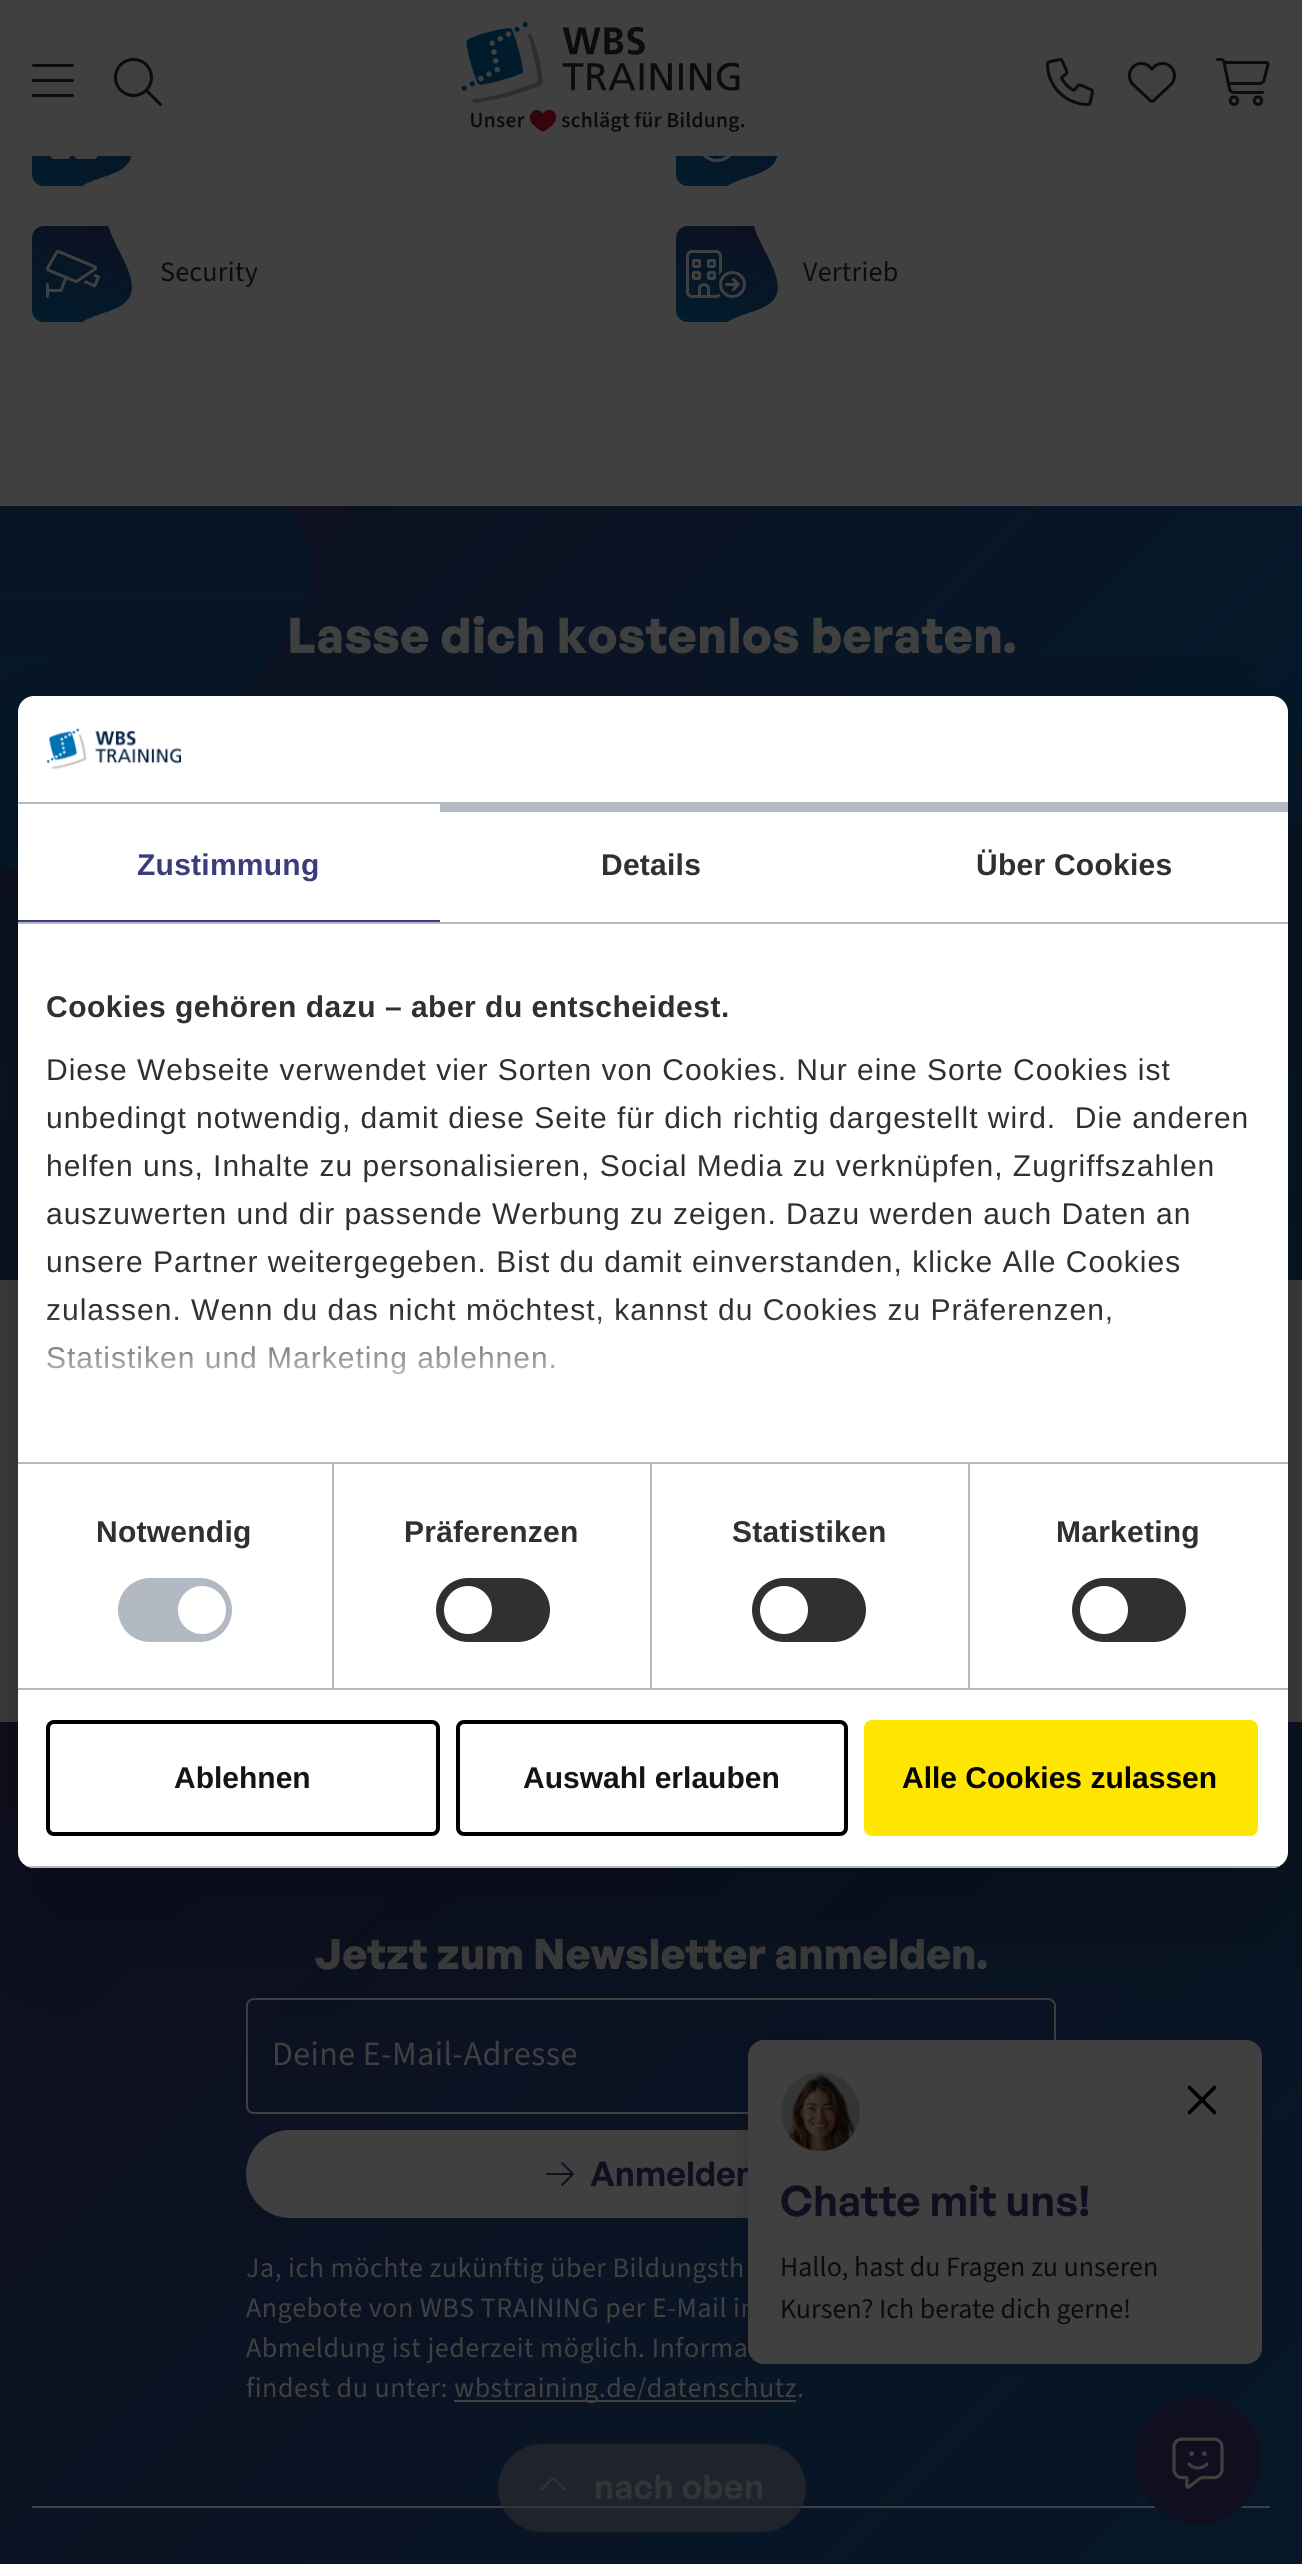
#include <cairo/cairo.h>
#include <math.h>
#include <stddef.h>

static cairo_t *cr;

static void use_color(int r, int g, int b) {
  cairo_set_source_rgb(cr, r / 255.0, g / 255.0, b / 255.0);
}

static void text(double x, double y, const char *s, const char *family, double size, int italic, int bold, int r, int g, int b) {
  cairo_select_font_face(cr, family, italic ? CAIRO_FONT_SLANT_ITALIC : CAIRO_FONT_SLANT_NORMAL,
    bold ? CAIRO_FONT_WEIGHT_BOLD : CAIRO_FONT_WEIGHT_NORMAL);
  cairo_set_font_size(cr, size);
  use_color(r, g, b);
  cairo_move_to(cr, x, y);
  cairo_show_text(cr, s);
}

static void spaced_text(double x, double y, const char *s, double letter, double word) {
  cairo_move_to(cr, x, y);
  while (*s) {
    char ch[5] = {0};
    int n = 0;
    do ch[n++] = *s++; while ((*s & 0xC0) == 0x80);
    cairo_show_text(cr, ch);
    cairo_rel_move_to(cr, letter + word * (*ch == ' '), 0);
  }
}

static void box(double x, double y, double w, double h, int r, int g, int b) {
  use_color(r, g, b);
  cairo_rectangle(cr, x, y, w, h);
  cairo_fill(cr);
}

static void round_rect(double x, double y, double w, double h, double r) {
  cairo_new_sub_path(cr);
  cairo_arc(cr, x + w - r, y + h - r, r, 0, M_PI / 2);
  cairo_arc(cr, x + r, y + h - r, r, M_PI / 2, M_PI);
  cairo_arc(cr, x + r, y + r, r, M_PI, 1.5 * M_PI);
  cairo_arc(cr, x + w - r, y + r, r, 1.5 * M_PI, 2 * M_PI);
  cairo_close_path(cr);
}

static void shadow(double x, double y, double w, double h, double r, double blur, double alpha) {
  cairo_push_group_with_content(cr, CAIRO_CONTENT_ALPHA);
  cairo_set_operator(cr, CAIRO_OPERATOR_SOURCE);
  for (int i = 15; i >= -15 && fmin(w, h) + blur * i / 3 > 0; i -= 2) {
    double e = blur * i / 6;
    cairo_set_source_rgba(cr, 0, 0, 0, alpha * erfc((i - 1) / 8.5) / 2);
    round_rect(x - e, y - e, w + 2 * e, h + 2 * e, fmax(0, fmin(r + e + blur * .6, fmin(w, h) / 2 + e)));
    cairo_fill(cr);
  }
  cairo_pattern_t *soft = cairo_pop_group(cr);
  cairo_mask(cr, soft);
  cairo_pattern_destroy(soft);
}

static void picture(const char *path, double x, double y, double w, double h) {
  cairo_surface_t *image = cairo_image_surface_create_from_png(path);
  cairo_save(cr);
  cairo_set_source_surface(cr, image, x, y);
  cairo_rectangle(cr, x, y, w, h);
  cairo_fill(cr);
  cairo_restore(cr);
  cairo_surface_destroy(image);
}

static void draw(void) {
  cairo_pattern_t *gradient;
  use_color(64, 64, 64);
  cairo_paint(cr);
  picture("img_01.png", 32, 64, 42, 33);
  picture("img_02.png", 114, 58, 48, 48);
  picture("img_03.png", 461, 22, 284, 110);
  picture("img_04.png", 1046, 58, 48, 48);
  picture("img_05.png", 1128, 62, 48, 41);
  picture("img_06.png", 1216, 58, 54, 48);
  picture("img_07.png", 32, 156, 100, 30);
  picture("img_08.png", 50, 156, 48, 3);
  picture("img_09.png", 676, 156, 102, 30);
  picture("img_10.png", 702, 156, 30, 6);
  picture("img_11.png", 32, 226, 100, 96);
  picture("img_12.png", 46, 250, 54, 48);
  picture("img_13.png", 676, 226, 102, 96);
  picture("img_14.png", 686, 250, 60, 48);
  gradient = cairo_pattern_create_linear(132, 374, 1170, 1412);
  cairo_pattern_add_color_stop_rgba(gradient, 0, 0.059, 0.059, 0.122, 1);
  cairo_pattern_add_color_stop_rgba(gradient, 1, 0, 0.11, 0.176, 1);
  cairo_set_source(cr, gradient);
  cairo_pattern_destroy(gradient);
  cairo_rectangle(cr, 0, 506, 1302, 774);
  cairo_fill(cr);
  cairo_save(cr);
  cairo_rectangle(cr, 1012, 822, 290, 458);
  cairo_clip(cr);
  gradient = cairo_pattern_create_linear(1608, 965, 982, 1187);
  cairo_pattern_add_color_stop_rgba(gradient, 0, 0.059, 0.059, 0.122, 1);
  cairo_pattern_add_color_stop_rgba(gradient, 1, 0, 0.11, 0.176, 1);
  cairo_set_source(cr, gradient);
  cairo_pattern_destroy(gradient);
  cairo_set_fill_rule(cr, CAIRO_FILL_RULE_EVEN_ODD);
  cairo_new_path(cr);
  cairo_move_to(cr, 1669, 1035);
  cairo_curve_to(cr, 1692, 1101, 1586, 1154, 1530, 1209);
  cairo_curve_to(cr, 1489, 1250, 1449, 1289, 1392, 1308);
  cairo_curve_to(cr, 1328, 1330, 1262, 1338, 1200, 1321);
  cairo_curve_to(cr, 1124, 1300, 1038, 1272, 1017, 1205);
  cairo_curve_to(cr, 995, 1138, 1056, 1070, 1098, 1004);
  cairo_curve_to(cr, 1144, 935, 1175, 831, 1265, 822);
  cairo_curve_to(cr, 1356, 814, 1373, 933, 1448, 972);
  cairo_curve_to(cr, 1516, 1008, 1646, 969, 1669, 1035);
  cairo_close_path(cr);
  cairo_fill(cr);
  cairo_restore(cr);
  cairo_save(cr);
  cairo_rectangle(cr, 0, 506, 312, 396);
  cairo_clip(cr);
  gradient = cairo_pattern_create_linear(-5.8, 189, -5.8, 1008);
  cairo_pattern_add_color_stop_rgba(gradient, 0, 0.059, 0.059, 0.122, 1);
  cairo_pattern_add_color_stop_rgba(gradient, 1, 0, 0.11, 0.176, 1);
  cairo_set_source(cr, gradient);
  cairo_pattern_destroy(gradient);
  cairo_set_fill_rule(cr, CAIRO_FILL_RULE_EVEN_ODD);
  cairo_new_path(cr);
  cairo_move_to(cr, -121, 300);
  cairo_curve_to(cr, -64, 278, 1, 275, 57, 298);
  cairo_curve_to(cr, 110, 319, 132, 378, 172, 419);
  cairo_curve_to(cr, 219, 466, 300, 490, 310, 556);
  cairo_curve_to(cr, 319, 622, 252, 670, 218, 727);
  cairo_curve_to(cr, 182, 787, 173, 880, 105, 898);
  cairo_curve_to(cr, 37, 917, -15, 831, -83, 808);
  cairo_curve_to(cr, -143, 787, -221, 815, -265, 769);
  cairo_curve_to(cr, -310, 723, -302, 649, -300, 585);
  cairo_curve_to(cr, -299, 525, -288, 466, -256, 415);
  cairo_curve_to(cr, -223, 364, -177, 321, -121, 300);
  cairo_close_path(cr);
  cairo_fill(cr);
  cairo_restore(cr);
  gradient = cairo_pattern_create_linear(-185, 1907, 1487, 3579);
  cairo_pattern_add_color_stop_rgba(gradient, 0, 0.059, 0.059, 0.122, 1);
  cairo_pattern_add_color_stop_rgba(gradient, 1, 0, 0.11, 0.176, 1);
  cairo_set_source(cr, gradient);
  cairo_pattern_destroy(gradient);
  cairo_rectangle(cr, 0, 1722, 1302, 842);
  cairo_fill(cr);
  round_rect(247, 1999, 808, 114, 7);
  use_color(64, 64, 64);
  cairo_stroke(cr);
  round_rect(246, 2130, 810, 88, 44);
  cairo_fill(cr);
  picture("img_16.png", 546, 2162, 28, 24);
  box(454, 2400, 342, 2, 64, 64, 64);
  box(32, 2506, 1238, 2, 64, 64, 64);
  cairo_set_source_rgba(cr, 0.176, 0.18, 0.192, 0.6);
  round_rect(498, 2444, 308, 88, 44);
  cairo_fill(cr);
  picture("img_17.png", 540, 2477, 26, 14);
  cairo_select_font_face(cr, "Source Sans 3", CAIRO_FONT_SLANT_NORMAL, CAIRO_FONT_WEIGHT_NORMAL);
  cairo_set_font_size(cr, 28);
  use_color(12, 12, 12);
  spaced_text(160, 281, "Security", 0.25, 0);
  spaced_text(803, 281, "Vertrieb", 0.25, 0);
  cairo_select_font_face(cr, "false", CAIRO_FONT_SLANT_NORMAL, CAIRO_FONT_WEIGHT_BOLD);
  cairo_set_font_size(cr, 49);
  use_color(64, 64, 64);
  spaced_text(287, 653, "Lasse dich kostenlos beraten.", 0.5, 0);
  cairo_set_font_size(cr, 42);
  spaced_text(315, 1969, "Jetzt zum Newsletter anmelden.", 0.05, 0);
  cairo_select_font_face(cr, "Source Sans 3", CAIRO_FONT_SLANT_NORMAL, CAIRO_FONT_WEIGHT_NORMAL);
  cairo_set_font_size(cr, 34);
  spaced_text(272, 2065, "Deine E-Mail-Adresse", 0.4, 0);
  text(590, 2186, "Anmelden", "General Sans SemiBold", 34, 0, 0, 15, 15, 31);
  cairo_select_font_face(cr, "Source Sans 3", CAIRO_FONT_SLANT_NORMAL, CAIRO_FONT_WEIGHT_NORMAL);
  cairo_set_font_size(cr, 28);
  use_color(64, 64, 64);
  spaced_text(246, 2277, "Ja, ich möchte zukünftig über Bildungsth", 0.5, 0);
  spaced_text(246, 2317, "Angebote von WBS TRAINING per E-Mail in", 0.5, 0);
  spaced_text(246, 2357, "Abmeldung ist jederzeit möglich. Informa", 0.5, 0);
  spaced_text(246, 2397, "findest du unter:", 0.5, 0);
  spaced_text(454, 2397, "wbstraining.de/datenschutz.", 0.5, 0);
  cairo_select_font_face(cr, "General Sans SemiBold", CAIRO_FONT_SLANT_NORMAL, CAIRO_FONT_WEIGHT_NORMAL);
  cairo_set_font_size(cr, 34);
  use_color(50, 53, 56);
  spaced_text(594, 2499, "nach oben", 0.4, 0);
  picture("img_18.png", 736, 2028, 537, 496);
  use_color(0, 0, 0);
  shadow(18, 760, 1270, 1172, 16, 68, 0.3);
  use_color(255, 255, 255);
  round_rect(18, 696, 1270, 1172, 16);
  cairo_fill(cr);
  cairo_select_font_face(cr, "Liberation Sans", CAIRO_FONT_SLANT_NORMAL, CAIRO_FONT_WEIGHT_NORMAL);
  cairo_set_font_size(cr, 30);
  use_color(48, 48, 48);
  spaced_text(46, 1368, "Statistiken und Marketing ablehnen.", 1, 0);
  spaced_text(46, 1320, "zulassen. Wenn du das nicht möchtest, kannst du Cookies zu Präferenzen,", 1, 0);
  gradient = cairo_pattern_create_linear(639, 1462, 639, 1312);
  cairo_pattern_add_color_stop_rgba(gradient, 0, 1, 1, 1, 1);
  cairo_pattern_add_color_stop_rgba(gradient, 0.5, 1, 1, 1, 0.8);
  cairo_pattern_add_color_stop_rgba(gradient, 1, 1, 1, 1, 0);
  cairo_set_source(cr, gradient);
  cairo_pattern_destroy(gradient);
  cairo_rectangle(cr, 47, 1314, 1064, 61);
  cairo_fill(cr);
  use_color(255, 230, 0);
  round_rect(866, 1722, 390, 112, 6);
  cairo_fill_preserve(cr);
  cairo_set_line_width(cr, 4);
  cairo_stroke(cr);
  text(902, 1788, "Alle Cookies zulassen", "Liberation Sans", 30, 0, 1, 0, 0, 0);
  round_rect(458, 1722, 388, 112, 6);
  cairo_stroke(cr);
  text(523, 1788, "Auswahl erlauben", "Liberation Sans", 30, 0, 1, 20, 20, 20);
  round_rect(48, 1722, 390, 112, 6);
  use_color(0, 0, 0);
  cairo_stroke(cr);
  text(174, 1788, "Ablehnen", "Liberation Sans", 30, 0, 1, 20, 20, 20);
  cairo_save(cr);
  round_rect(18, 696, 1270, 1172, 16);
  cairo_clip(cr);
  box(18, 1866, 1270, 2, 179, 185, 195);
  cairo_restore(cr);
  use_color(48, 48, 48);
  round_rect(1072, 1578, 114, 64, 32);
  cairo_fill(cr);
  use_color(255, 255, 255);
  cairo_arc(cr, 1104, 1610, 24, 0, 2 * M_PI);
  cairo_fill(cr);
  use_color(48, 48, 48);
  round_rect(752, 1578, 114, 64, 32);
  cairo_fill(cr);
  use_color(255, 255, 255);
  cairo_arc(cr, 784, 1610, 24, 0, 2 * M_PI);
  cairo_fill(cr);
  use_color(48, 48, 48);
  round_rect(436, 1578, 114, 64, 32);
  cairo_fill(cr);
  use_color(255, 255, 255);
  cairo_arc(cr, 468, 1610, 24, 0, 2 * M_PI);
  cairo_fill(cr);
  use_color(179, 185, 195);
  round_rect(118, 1578, 114, 64, 32);
  cairo_fill(cr);
  use_color(255, 255, 255);
  cairo_arc(cr, 202, 1610, 24, 0, 2 * M_PI);
  cairo_fill(cr);
  cairo_select_font_face(cr, "Liberation Sans", CAIRO_FONT_SLANT_NORMAL, CAIRO_FONT_WEIGHT_NORMAL);
  use_color(48, 48, 48);
  spaced_text(46, 1272, "unsere Partner weitergegeben. Bist du damit einverstanden, klicke Alle Cookies", 1, 0);
  spaced_text(46, 1224, "auszuwerten und dir passende Werbung zu zeigen. Dazu werden auch Daten an", 1, 0);
  spaced_text(46, 1176, "helfen uns, Inhalte zu personalisieren, Social Media zu verknüpfen, Zugriffszahlen", 1, 0);
  spaced_text(46, 1128, "unbedingt notwendig, damit diese Seite für dich richtig dargestellt wird.  Die anderen", 1, 0);
  spaced_text(46, 1080, "Diese Webseite verwendet vier Sorten von Cookies. Nur eine Sorte Cookies ist", 1, 0);
  cairo_select_font_face(cr, "Liberation Sans", CAIRO_FONT_SLANT_NORMAL, CAIRO_FONT_WEIGHT_BOLD);
  spaced_text(46, 1017, "Cookies gehören dazu – aber du entscheidest.", 0.5, 0);
  box(18, 1462, 1270, 2, 179, 185, 195);
  use_color(48, 48, 48);
  spaced_text(976, 875, "Über Cookies", 0.25, 0);
  spaced_text(601, 875, "Details", 0.25, 0);
  box(440, 804, 848, 8, 179, 185, 195);
  use_color(60, 60, 125);
  spaced_text(137, 875, "Zustimmung", 0.25, 0);
  box(18, 920, 422, 2, 60, 60, 125);
  box(18, 922, 1270, 2, 179, 185, 195);
  use_color(48, 48, 48);
  spaced_text(1056, 1542, "Marketing", 0.25, 0);
  spaced_text(732, 1542, "Statistiken", 0.25, 0);
  box(968, 1464, 2, 224, 179, 185, 195);
  use_color(48, 48, 48);
  spaced_text(404, 1542, "Präferenzen", 0.25, 0);
  box(650, 1464, 2, 224, 179, 185, 195);
  use_color(48, 48, 48);
  spaced_text(96, 1542, "Notwendig", 0.25, 0);
  box(332, 1464, 2, 224, 179, 185, 195);
  box(18, 1688, 1270, 2, 179, 185, 195);
  picture("img_15.png", 47, 728, 134, 42);
  box(18, 802, 1270, 2, 179, 185, 195);
}

int main(void) {
  cairo_surface_t *surface = cairo_image_surface_create(CAIRO_FORMAT_RGB24, 1302, 2564);
  cr = cairo_create(surface);
  cairo_font_options_t *options = cairo_font_options_create();
  cairo_font_options_set_hint_metrics(options, CAIRO_HINT_METRICS_OFF);
  cairo_font_options_set_hint_style(options, CAIRO_HINT_STYLE_NONE);
  cairo_set_font_options(cr, options);
  cairo_set_miter_limit(cr, 4);
  draw();
  cairo_surface_write_to_png(surface, "out.png");
  cairo_font_options_destroy(options);
  cairo_destroy(cr);
  cairo_surface_destroy(surface);
  return 0;
}
